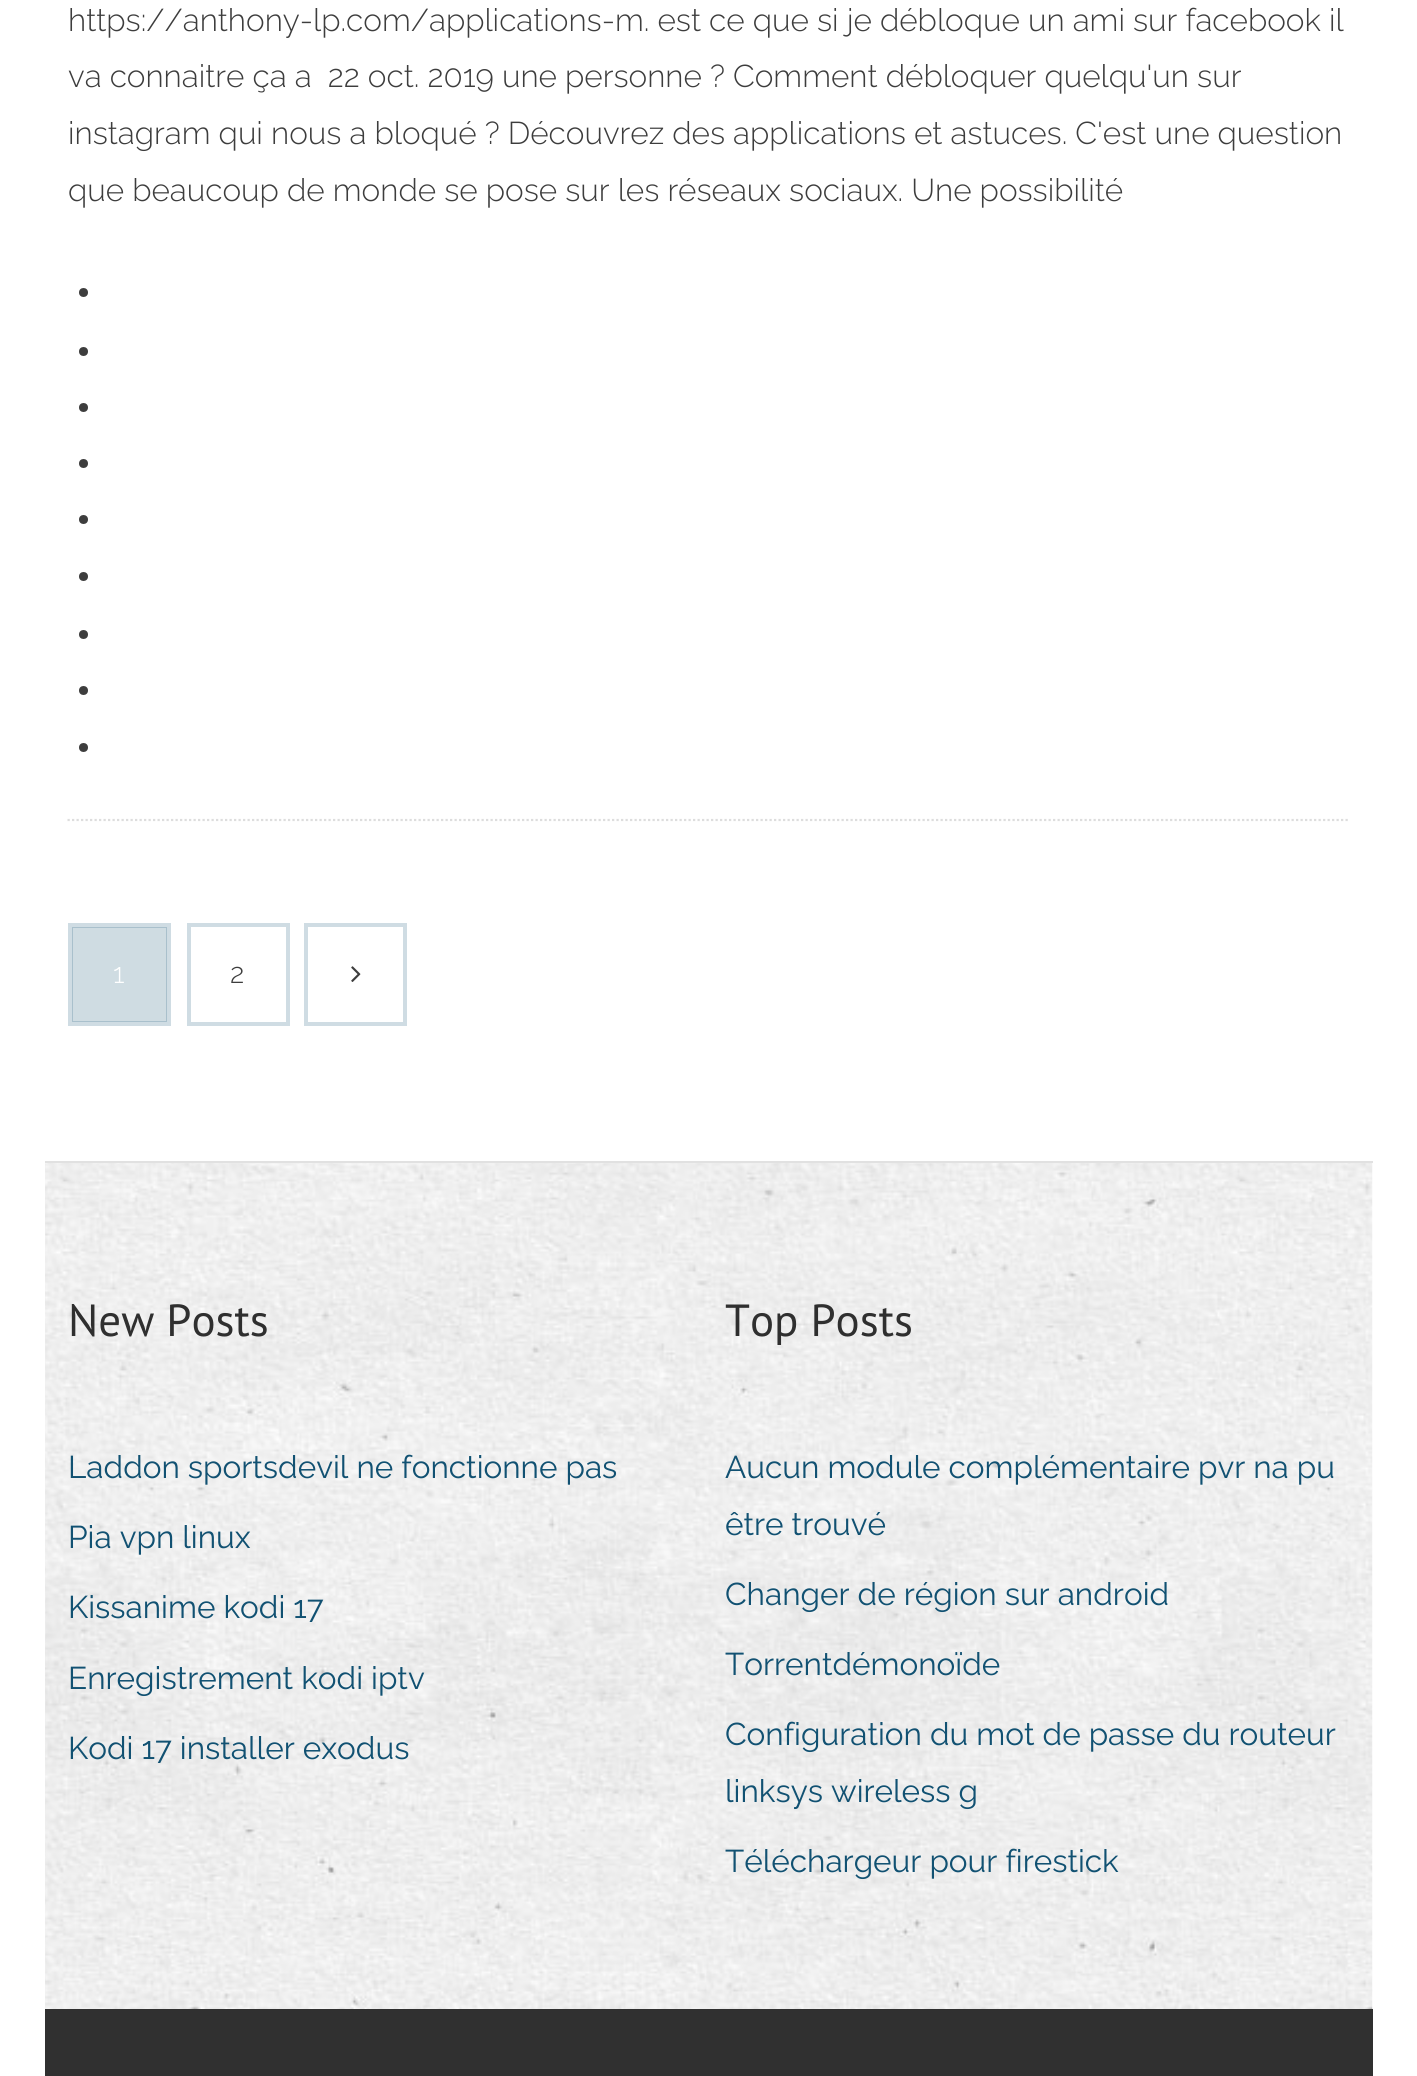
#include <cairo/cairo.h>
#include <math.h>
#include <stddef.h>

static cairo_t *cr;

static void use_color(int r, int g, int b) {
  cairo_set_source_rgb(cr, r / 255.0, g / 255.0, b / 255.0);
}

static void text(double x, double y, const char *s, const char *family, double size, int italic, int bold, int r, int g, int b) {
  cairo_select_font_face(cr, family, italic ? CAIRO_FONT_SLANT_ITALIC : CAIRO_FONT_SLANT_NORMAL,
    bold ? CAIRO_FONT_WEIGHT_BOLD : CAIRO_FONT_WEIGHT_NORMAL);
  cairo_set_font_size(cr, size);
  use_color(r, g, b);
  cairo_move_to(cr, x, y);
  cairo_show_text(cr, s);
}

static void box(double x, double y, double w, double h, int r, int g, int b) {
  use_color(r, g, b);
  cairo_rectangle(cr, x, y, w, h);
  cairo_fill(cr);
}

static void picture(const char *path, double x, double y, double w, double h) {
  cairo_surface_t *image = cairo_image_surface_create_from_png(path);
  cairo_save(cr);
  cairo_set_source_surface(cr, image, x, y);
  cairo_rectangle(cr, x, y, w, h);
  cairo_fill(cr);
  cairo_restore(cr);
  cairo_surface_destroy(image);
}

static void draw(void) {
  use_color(255, 255, 255);
  cairo_paint(cr);
  cairo_new_path(cr);
  cairo_move_to(cr, 67.5, 820);
  cairo_line_to(cr, 1350, 820);
  use_color(221, 221, 221);
  cairo_set_line_width(cr, 2.2);
  cairo_set_dash(cr, (double[]){2.25, 2.25}, 2, 0);
  cairo_stroke(cr);
  use_color(61, 61, 61);
  cairo_arc(cr, 83.5, 292.5, 4.5, 0, 2 * M_PI);
  cairo_fill(cr);
  cairo_arc(cr, 83.5, 351.5, 4.5, 0, 2 * M_PI);
  cairo_fill(cr);
  cairo_arc(cr, 83.5, 407.5, 4.5, 0, 2 * M_PI);
  cairo_fill(cr);
  cairo_arc(cr, 83.5, 463.5, 4.5, 0, 2 * M_PI);
  cairo_fill(cr);
  cairo_arc(cr, 83.5, 519.5, 4.5, 0, 2 * M_PI);
  cairo_fill(cr);
  cairo_arc(cr, 83.5, 576.5, 4.5, 0, 2 * M_PI);
  cairo_fill(cr);
  cairo_arc(cr, 83.5, 634.5, 4.5, 0, 2 * M_PI);
  cairo_fill(cr);
  cairo_arc(cr, 83.5, 690.5, 4.5, 0, 2 * M_PI);
  cairo_fill(cr);
  cairo_arc(cr, 83.5, 747.5, 4.5, 0, 2 * M_PI);
  cairo_fill(cr);
  cairo_rectangle(cr, 70.5, 925.5, 98, 98);
  use_color(207, 220, 227);
  cairo_set_line_width(cr, 5);
  cairo_set_dash(cr, NULL, 0, 0);
  cairo_stroke(cr);
  cairo_set_source_rgba(cr, 0.067, 0.318, 0.447, 0.2);
  cairo_rectangle(cr, 72, 927, 95, 95);
  cairo_fill(cr);
  cairo_rectangle(cr, 189.5, 925.5, 98, 98);
  use_color(207, 220, 227);
  cairo_stroke(cr);
  box(191, 927, 95, 95, 255, 255, 255);
  cairo_rectangle(cr, 306.5, 925.5, 98, 98);
  use_color(207, 220, 227);
  cairo_stroke(cr);
  box(308, 927, 95, 95, 255, 255, 255);
  picture("img_01.png", 351, 966, 10, 16);
  picture("img_02.png", 45, 1163, 1328, 846);
  box(45, 1161, 1328, 2, 225, 225, 225);
  box(45, 2009, 1328, 67, 48, 48, 48);
  text(68, 31, "https://anthony-lp.com/applications-m. est ce que si je débloque un ami sur facebook il", "Raleway Light", 31.5, 0, 0, 61, 61, 61);
  text(68, 87, "va connaitre ça a  22 oct. 2019 une personne ? Comment débloquer quelqu'un sur", "Raleway Light", 31.5, 0, 0, 61, 61, 61);
  text(68, 144, "instagram qui nous a bloqué ? Découvrez des applications et astuces. C'est une question", "Raleway Light", 31.5, 0, 0, 61, 61, 61);
  text(68, 201, "que beaucoup de monde se pose sur les réseaux sociaux. Une possibilité", "Raleway Light", 31.5, 0, 0, 61, 61, 61);
  text(113, 983, "1", "Raleway Light", 28, 0, 0, 255, 255, 255);
  text(230, 983, "2", "Raleway Light", 28, 0, 0, 61, 61, 61);
  text(68, 1336, "New Posts", "PT Sans", 45, 0, 0, 47, 47, 47);
  text(68, 1478, "Laddon sportsdevil ne fonctionne pas", "Raleway", 31.5, 0, 0, 17, 81, 114);
  text(68, 1548, "Pia vpn linux", "Raleway", 31.5, 0, 0, 17, 81, 114);
  text(68, 1618, "Kissanime kodi 17", "Raleway", 31.5, 0, 0, 17, 81, 114);
  text(68, 1689, "Enregistrement kodi iptv", "Raleway", 31.5, 0, 0, 17, 81, 114);
  text(68, 1759, "Kodi 17 installer exodus", "Raleway", 31.5, 0, 0, 17, 81, 114);
  text(725, 1336, "Top Posts", "PT Sans", 45, 0, 0, 47, 47, 47);
  text(725, 1478, "Aucun module complémentaire pvr na pu", "Raleway", 31.5, 0, 0, 17, 81, 114);
  text(725, 1535, "être trouvé", "Raleway", 31.5, 0, 0, 17, 81, 114);
  text(725, 1605, "Changer de région sur android", "Raleway", 31.5, 0, 0, 17, 81, 114);
  text(725, 1675, "Torrentdémonoïde", "Raleway", 31.5, 0, 0, 17, 81, 114);
  text(725, 1745, "Configuration du mot de passe du routeur", "Raleway", 31.5, 0, 0, 17, 81, 114);
  text(725, 1802, "linksys wireless g", "Raleway", 31.5, 0, 0, 17, 81, 114);
  text(725, 1872, "Téléchargeur pour firestick", "Raleway", 31.5, 0, 0, 17, 81, 114);
}

int main(void) {
  cairo_surface_t *surface = cairo_image_surface_create(CAIRO_FORMAT_RGB24, 1417, 2076);
  cr = cairo_create(surface);
  cairo_font_options_t *options = cairo_font_options_create();
  cairo_font_options_set_hint_metrics(options, CAIRO_HINT_METRICS_OFF);
  cairo_font_options_set_hint_style(options, CAIRO_HINT_STYLE_NONE);
  cairo_set_font_options(cr, options);
  cairo_set_miter_limit(cr, 4);
  draw();
  cairo_surface_write_to_png(surface, "out.png");
  cairo_font_options_destroy(options);
  cairo_destroy(cr);
  cairo_surface_destroy(surface);
  return 0;
}
